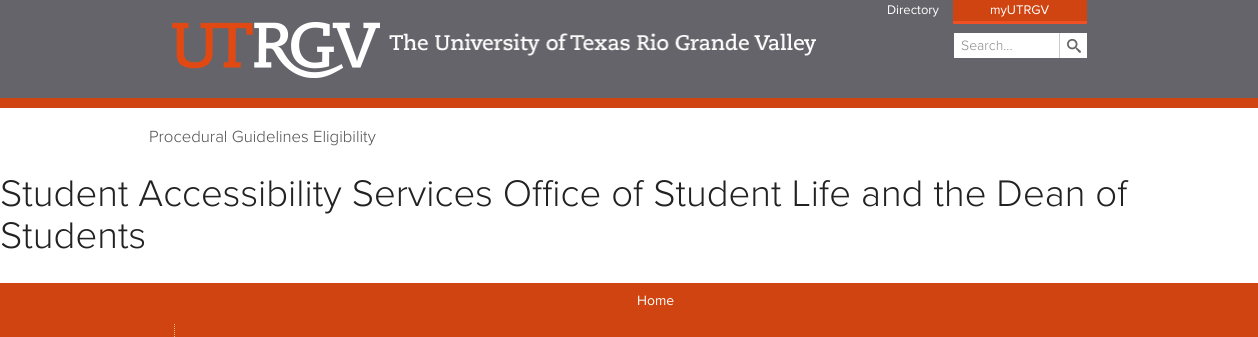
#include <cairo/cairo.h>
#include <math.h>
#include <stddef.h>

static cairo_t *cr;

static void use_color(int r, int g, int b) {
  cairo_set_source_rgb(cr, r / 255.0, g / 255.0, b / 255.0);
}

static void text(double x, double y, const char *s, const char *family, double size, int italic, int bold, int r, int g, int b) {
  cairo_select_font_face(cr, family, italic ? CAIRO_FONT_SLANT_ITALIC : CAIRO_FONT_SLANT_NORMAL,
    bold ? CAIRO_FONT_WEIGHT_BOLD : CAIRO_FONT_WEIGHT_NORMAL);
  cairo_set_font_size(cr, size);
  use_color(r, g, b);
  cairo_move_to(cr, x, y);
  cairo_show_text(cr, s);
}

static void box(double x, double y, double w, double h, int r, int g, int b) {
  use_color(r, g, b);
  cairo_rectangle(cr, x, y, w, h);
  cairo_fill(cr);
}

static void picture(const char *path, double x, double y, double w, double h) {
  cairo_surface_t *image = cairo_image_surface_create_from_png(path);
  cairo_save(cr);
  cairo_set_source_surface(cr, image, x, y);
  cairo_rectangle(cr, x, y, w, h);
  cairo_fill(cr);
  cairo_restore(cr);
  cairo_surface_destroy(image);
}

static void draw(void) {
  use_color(255, 255, 255);
  cairo_paint(cr);
  box(0, 0, 1258, 98, 101, 100, 106);
  box(0, 98, 1258, 10, 207, 68, 17);
  picture("img_01.png", 172, 22, 208, 56);
  picture("img_02.png", 389, 33, 427, 23);
  box(953, 0, 134, 21, 207, 68, 17);
  box(953, 21, 134, 3, 240, 80, 35);
  box(954, 33, 133, 25, 255, 255, 255);
  picture("img_03.png", 1067, 39, 14, 14);
  box(1059, 33, 1, 25, 204, 204, 204);
  box(0, 283, 1258, 54, 207, 68, 17);
  cairo_new_path(cr);
  cairo_move_to(cr, 174.5, 324);
  cairo_line_to(cr, 174.5, 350);
  use_color(255, 187, 128);
  cairo_set_line_width(cr, 1);
  cairo_set_dash(cr, (double[]){1, 1}, 2, 0);
  cairo_stroke(cr);
  text(887, 14, "Directory", "Proxima Nova", 13, 0, 0, 255, 255, 255);
  text(990, 14, "myUTRGV", "Proxima Nova", 13, 0, 0, 255, 255, 255);
  text(961, 50, "Search...", "Proxima Nova Light", 14, 0, 0, 136, 136, 136);
  text(149, 142, "Procedural Guidelines", "Proxima Nova Light", 16.75, 0, 0, 77, 77, 77);
  text(313, 142, "Eligibility", "Proxima Nova Light", 16.75, 0, 0, 77, 77, 77);
  text(0, 206, "Student Accessibility Services Office of Student Life and the Dean of", "Proxima Nova Light", 38.35, 0, 0, 34, 34, 34);
  text(0, 248, "Students", "Proxima Nova Light", 38.35, 0, 0, 34, 34, 34);
  text(637, 305, "Home", "Proxima Nova", 14, 0, 0, 255, 255, 255);
}

int main(void) {
  cairo_surface_t *surface = cairo_image_surface_create(CAIRO_FORMAT_RGB24, 1258, 337);
  cr = cairo_create(surface);
  cairo_font_options_t *options = cairo_font_options_create();
  cairo_font_options_set_hint_metrics(options, CAIRO_HINT_METRICS_OFF);
  cairo_font_options_set_hint_style(options, CAIRO_HINT_STYLE_NONE);
  cairo_set_font_options(cr, options);
  cairo_set_miter_limit(cr, 4);
  draw();
  cairo_surface_write_to_png(surface, "out.png");
  cairo_font_options_destroy(options);
  cairo_destroy(cr);
  cairo_surface_destroy(surface);
  return 0;
}
